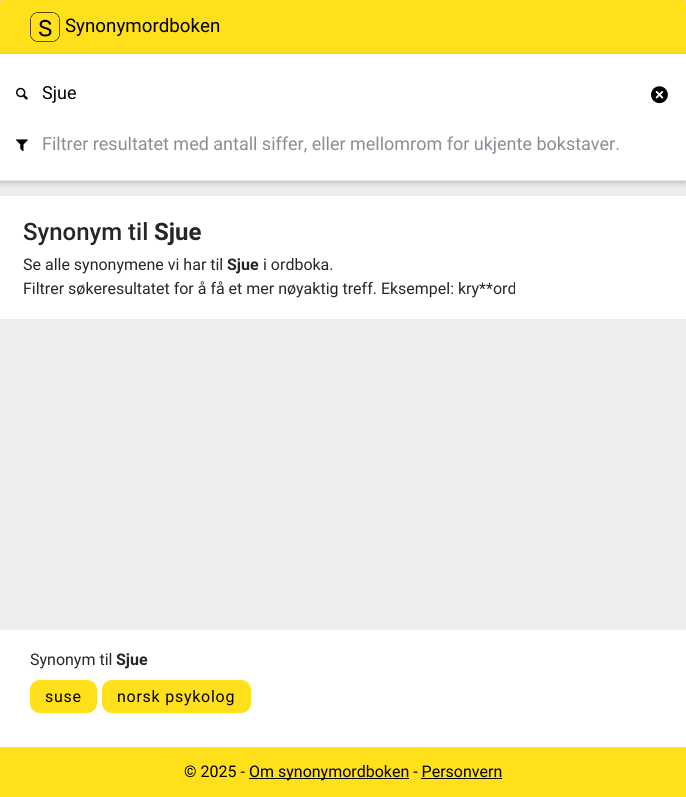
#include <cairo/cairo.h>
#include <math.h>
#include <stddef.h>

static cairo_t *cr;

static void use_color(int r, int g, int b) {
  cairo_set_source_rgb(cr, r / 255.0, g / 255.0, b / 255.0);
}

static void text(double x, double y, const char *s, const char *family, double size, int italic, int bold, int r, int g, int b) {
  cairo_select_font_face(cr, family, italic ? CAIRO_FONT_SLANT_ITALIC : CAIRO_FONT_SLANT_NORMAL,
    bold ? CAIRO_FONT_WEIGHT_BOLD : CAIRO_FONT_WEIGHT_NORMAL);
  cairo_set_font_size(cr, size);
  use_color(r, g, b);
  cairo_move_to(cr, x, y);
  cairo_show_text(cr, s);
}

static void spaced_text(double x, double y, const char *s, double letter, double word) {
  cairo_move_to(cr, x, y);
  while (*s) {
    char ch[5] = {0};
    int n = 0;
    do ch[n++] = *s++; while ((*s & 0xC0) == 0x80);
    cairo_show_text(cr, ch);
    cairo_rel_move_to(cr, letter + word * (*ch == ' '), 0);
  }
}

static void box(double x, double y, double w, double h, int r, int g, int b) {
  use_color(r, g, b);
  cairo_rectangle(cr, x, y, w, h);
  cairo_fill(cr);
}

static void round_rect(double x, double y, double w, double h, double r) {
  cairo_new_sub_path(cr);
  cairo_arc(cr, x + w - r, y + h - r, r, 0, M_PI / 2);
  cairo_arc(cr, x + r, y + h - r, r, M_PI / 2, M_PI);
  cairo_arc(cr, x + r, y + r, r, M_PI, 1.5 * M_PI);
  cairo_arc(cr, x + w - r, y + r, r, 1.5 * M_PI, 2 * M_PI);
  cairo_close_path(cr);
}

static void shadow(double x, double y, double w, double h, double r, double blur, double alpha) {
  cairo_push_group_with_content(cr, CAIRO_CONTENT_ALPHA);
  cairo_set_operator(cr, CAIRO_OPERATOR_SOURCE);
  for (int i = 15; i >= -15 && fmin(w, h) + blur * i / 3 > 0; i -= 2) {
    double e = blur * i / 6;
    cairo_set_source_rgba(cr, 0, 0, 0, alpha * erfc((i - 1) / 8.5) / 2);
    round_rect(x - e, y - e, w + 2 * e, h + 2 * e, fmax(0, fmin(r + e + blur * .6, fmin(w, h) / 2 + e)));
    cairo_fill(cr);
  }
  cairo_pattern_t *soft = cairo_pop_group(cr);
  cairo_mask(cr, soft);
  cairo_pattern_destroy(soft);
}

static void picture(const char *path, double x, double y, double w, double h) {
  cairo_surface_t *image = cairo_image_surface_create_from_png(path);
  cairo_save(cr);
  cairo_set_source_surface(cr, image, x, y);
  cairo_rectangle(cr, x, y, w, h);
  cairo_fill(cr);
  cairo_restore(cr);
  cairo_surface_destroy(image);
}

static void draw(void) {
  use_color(236, 238, 239);
  cairo_paint(cr);
  use_color(0, 0, 0);
  shadow(0, 2, 686, 54, 2, 5, 0.12);
  shadow(0, 2, 686, 54, 2, 2.5, 0.16);
  use_color(255, 224, 27);
  round_rect(0, 0, 686, 54, 2);
  cairo_fill(cr);
  picture("img_01.png", 30, 12, 30, 30);
  use_color(0, 0, 0);
  shadow(0, 56, 686, 127, 0, 3, 0.2);
  box(0, 54, 686, 126, 255, 255, 255);
  box(0, 180, 686, 1, 230, 230, 230);
  picture("img_02.png", 16, 87, 12, 13);
  picture("img_03.png", 651, 86, 17, 18);
  picture("img_04.png", 16, 139, 12, 13);
  box(0, 196, 686, 123, 255, 255, 255);
  box(0, 630, 686, 117, 255, 255, 255);
  use_color(255, 224, 27);
  round_rect(30, 680, 67, 33, 10);
  cairo_fill(cr);
  round_rect(102, 680, 149, 33, 10);
  cairo_fill(cr);
  box(0, 747, 686, 50, 255, 224, 27);
  box(249, 778, 160, 1, 0, 0, 0);
  box(421, 778, 81, 1, 0, 0, 0);
  text(65, 32, "Synonymordboken", "Roboto", 18.75, 0, 0, 0, 0, 0);
  text(42, 99, "Sjue", "Roboto", 18, 0, 0, 0, 0, 0);
  text(42, 150, "Filtrer resultatet med antall siffer, eller mellomrom for ukjente bokstaver.", "Roboto", 18, 0, 0, 134, 142, 150);
  text(23, 240, "Synonym til", "Roboto Medium", 24, 0, 0, 38, 38, 39);
  text(154, 240, "Sjue", "Roboto", 24, 0, 1, 38, 38, 39);
  text(23, 270, "Se alle synonymene vi har til", "Roboto", 16, 0, 0, 38, 38, 39);
  text(227, 270, "Sjue", "Roboto", 16, 0, 1, 38, 38, 39);
  text(263, 270, "i ordboka.", "Roboto", 16, 0, 0, 38, 38, 39);
  text(23, 294, "Filtrer søkeresultatet for å få et mer nøyaktig treff. Eksempel: kry**ord", "Roboto", 16, 0, 0, 38, 38, 39);
  text(30, 665, "Synonym til", "Roboto", 16, 0, 0, 38, 38, 39);
  text(116, 665, "Sjue", "Roboto", 16, 0, 1, 38, 38, 39);
  cairo_select_font_face(cr, "Roboto", CAIRO_FONT_SLANT_NORMAL, CAIRO_FONT_WEIGHT_NORMAL);
  use_color(0, 0, 0);
  spaced_text(45, 702, "suse", 0.75, 0);
  spaced_text(117, 702, "norsk psykolog", 0.75, 0);
  text(184, 777, "© 2025 -", "Roboto", 16, 0, 0, 0, 0, 0);
  text(249, 777, "Om synonymordboken - Personvern", "Roboto", 16, 0, 0, 0, 0, 0);
}

int main(void) {
  cairo_surface_t *surface = cairo_image_surface_create(CAIRO_FORMAT_RGB24, 686, 797);
  cr = cairo_create(surface);
  cairo_font_options_t *options = cairo_font_options_create();
  cairo_font_options_set_hint_metrics(options, CAIRO_HINT_METRICS_OFF);
  cairo_font_options_set_hint_style(options, CAIRO_HINT_STYLE_NONE);
  cairo_set_font_options(cr, options);
  cairo_set_miter_limit(cr, 4);
  draw();
  cairo_surface_write_to_png(surface, "out.png");
  cairo_font_options_destroy(options);
  cairo_destroy(cr);
  cairo_surface_destroy(surface);
  return 0;
}
